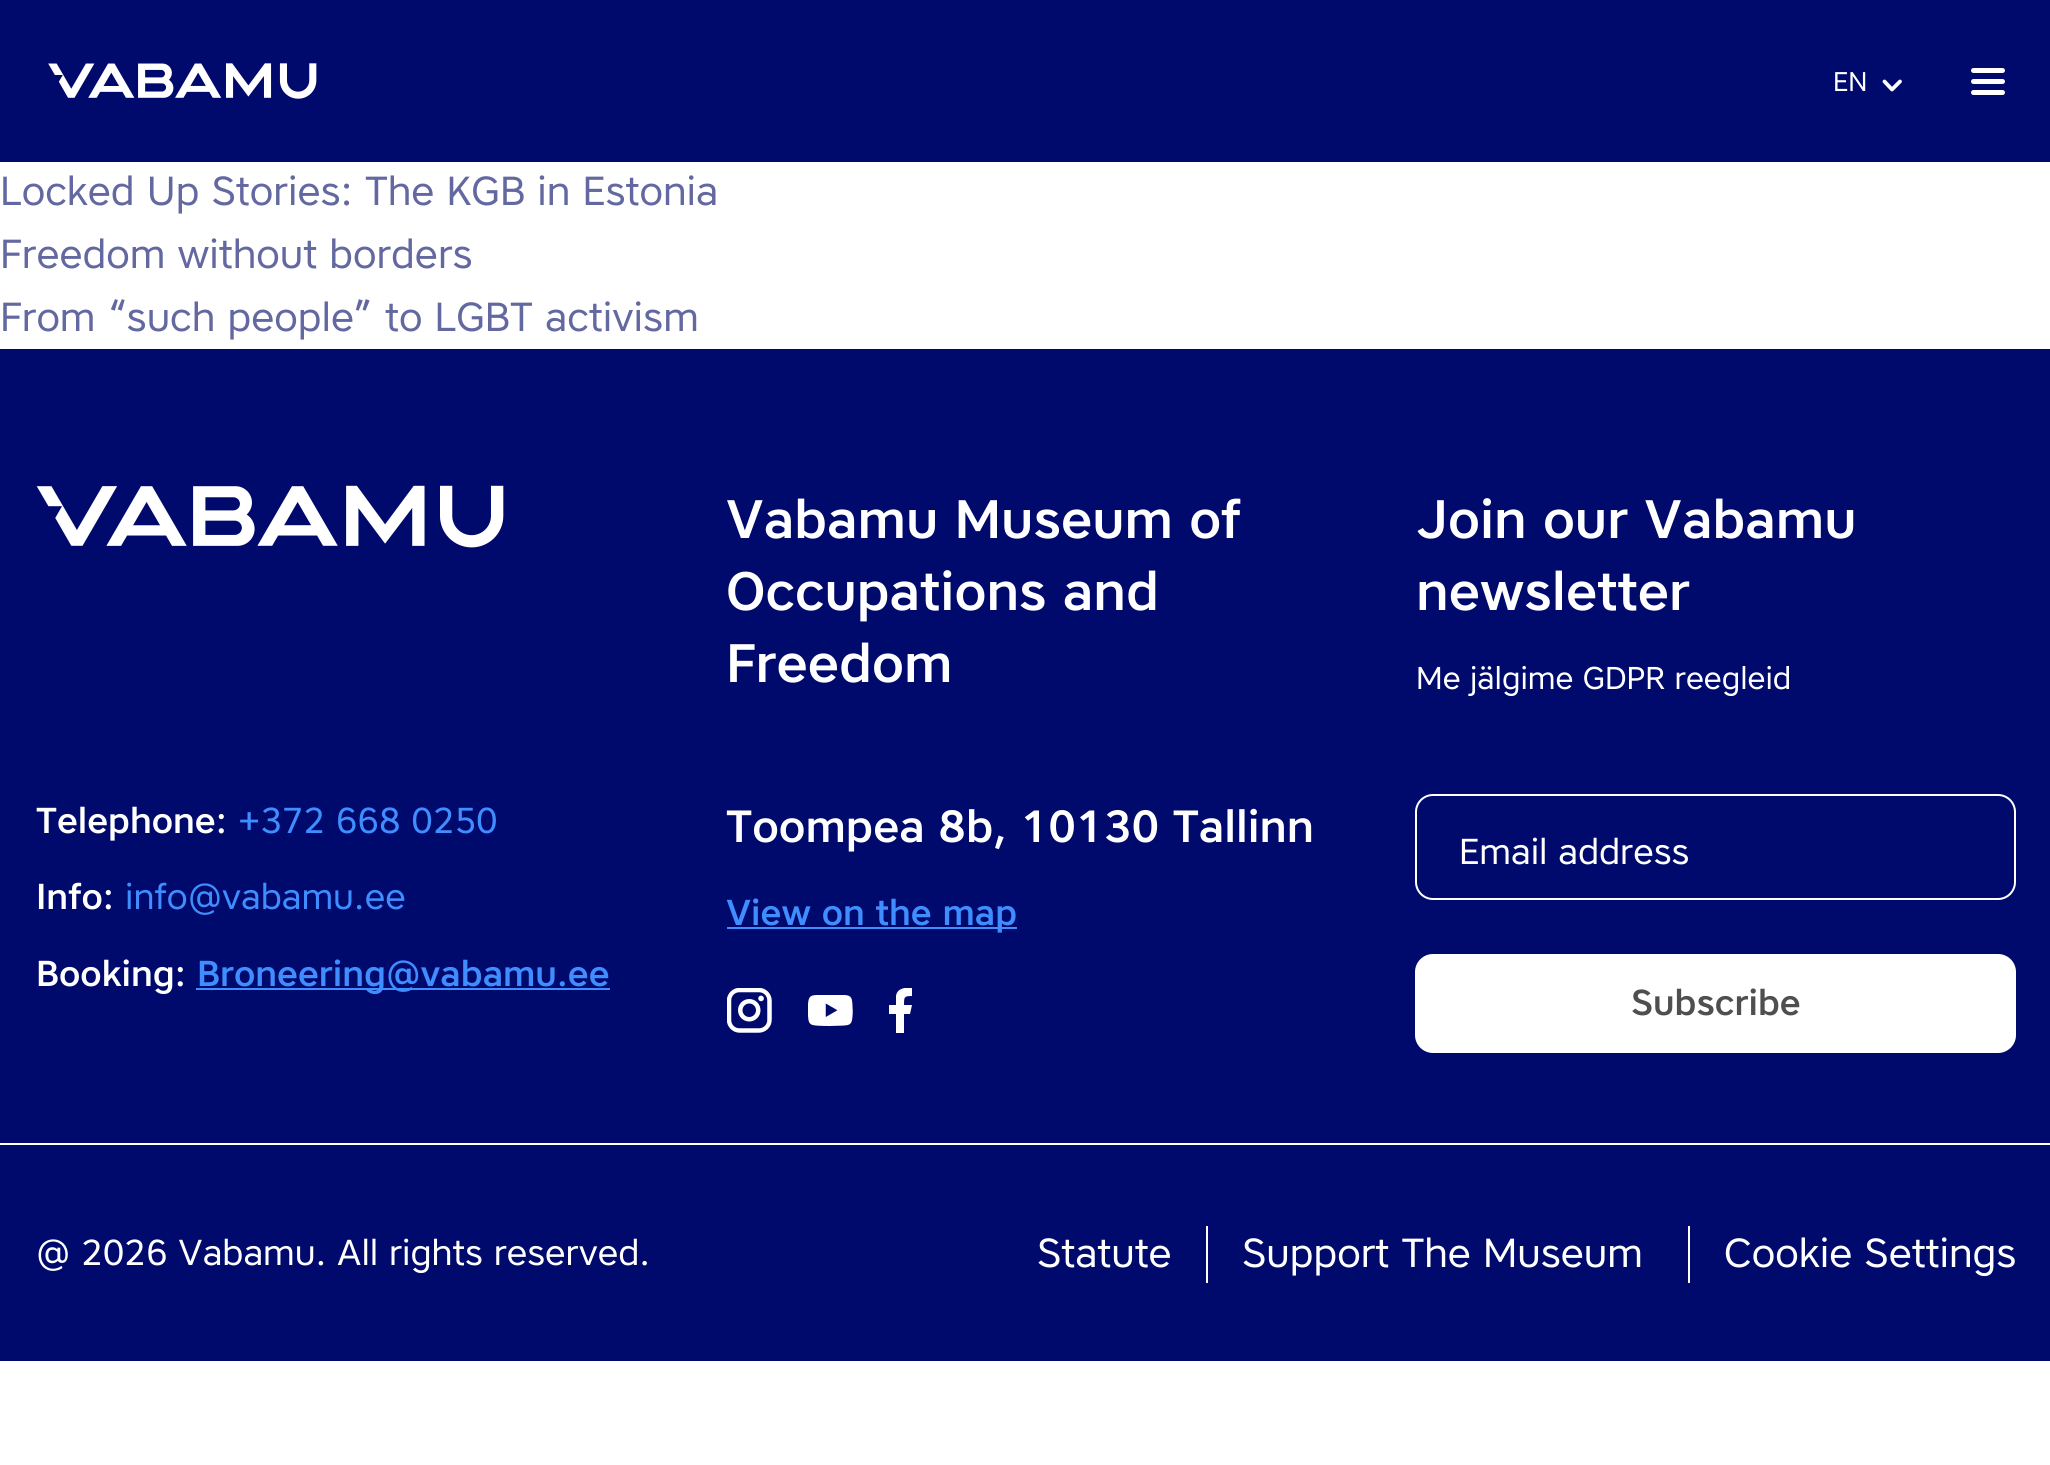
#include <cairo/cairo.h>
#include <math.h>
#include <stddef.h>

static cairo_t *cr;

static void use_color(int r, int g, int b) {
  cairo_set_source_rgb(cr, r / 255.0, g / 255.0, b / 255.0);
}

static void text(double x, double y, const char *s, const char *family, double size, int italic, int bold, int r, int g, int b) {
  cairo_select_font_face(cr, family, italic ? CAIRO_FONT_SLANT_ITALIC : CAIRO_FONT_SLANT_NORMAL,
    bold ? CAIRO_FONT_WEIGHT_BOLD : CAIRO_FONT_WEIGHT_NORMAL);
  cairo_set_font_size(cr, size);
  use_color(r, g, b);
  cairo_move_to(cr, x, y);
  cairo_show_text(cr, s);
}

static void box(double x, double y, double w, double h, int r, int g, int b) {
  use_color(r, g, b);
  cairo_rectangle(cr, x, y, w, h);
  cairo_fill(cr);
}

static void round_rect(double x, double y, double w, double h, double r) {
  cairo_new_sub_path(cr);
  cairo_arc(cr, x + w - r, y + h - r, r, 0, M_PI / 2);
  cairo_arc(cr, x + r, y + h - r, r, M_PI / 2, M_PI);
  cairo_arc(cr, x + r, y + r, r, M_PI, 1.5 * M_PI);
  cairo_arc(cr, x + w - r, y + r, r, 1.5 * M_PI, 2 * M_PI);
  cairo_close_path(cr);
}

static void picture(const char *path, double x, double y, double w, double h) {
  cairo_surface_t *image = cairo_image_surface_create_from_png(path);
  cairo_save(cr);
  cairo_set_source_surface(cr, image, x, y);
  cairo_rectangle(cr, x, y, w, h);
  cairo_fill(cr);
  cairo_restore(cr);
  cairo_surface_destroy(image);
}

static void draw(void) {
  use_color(255, 255, 255);
  cairo_paint(cr);
  box(0, 0, 2050, 162, 0, 10, 108);
  picture("img_01.png", 48, 63, 269, 36);
  cairo_new_path(cr);
  cairo_move_to(cr, 1884.5, 81.5);
  cairo_line_to(cr, 1892, 89.5);
  cairo_line_to(cr, 1900, 81.5);
  use_color(255, 255, 255);
  cairo_set_line_width(cr, 3.8);
  cairo_set_line_cap(cr, CAIRO_LINE_CAP_ROUND);
  cairo_set_line_join(cr, CAIRO_LINE_JOIN_ROUND);
  cairo_stroke(cr);
  round_rect(1971, 68, 34, 5, 2.5);
  cairo_fill(cr);
  round_rect(1971, 79, 34, 5, 2.5);
  cairo_fill(cr);
  round_rect(1971, 90, 34, 5, 2.5);
  cairo_fill(cr);
  box(0, 349, 2050, 1012, 0, 10, 108);
  picture("img_02.png", 36, 485, 468, 63);
  box(196, 988, 414, 2, 63, 141, 255);
  box(727, 927, 290, 2, 63, 141, 255);
  picture("img_03.png", 727, 988, 45, 45);
  picture("img_04.png", 808, 995, 45, 31);
  cairo_save(cr);
  cairo_rectangle(cr, 889, 988, 25, 45);
  cairo_clip(cr);
  use_color(255, 255, 255);
  cairo_new_path(cr);
  cairo_move_to(cr, 904, 1014);
  cairo_line_to(cr, 910, 1014);
  cairo_line_to(cr, 912, 1005);
  cairo_line_to(cr, 904, 1005);
  cairo_curve_to(cr, 904, 997, 904, 996, 912, 996);
  cairo_line_to(cr, 912, 988);
  cairo_curve_to(cr, 906, 987, 897, 988, 896, 996);
  cairo_line_to(cr, 896, 1005);
  cairo_line_to(cr, 889, 1005);
  cairo_line_to(cr, 889, 1014);
  cairo_line_to(cr, 896, 1014);
  cairo_line_to(cr, 896, 1033);
  cairo_line_to(cr, 904, 1033);
  cairo_close_path(cr);
  cairo_fill(cr);
  cairo_restore(cr);
  round_rect(1416, 795, 599, 104, 17);
  use_color(255, 255, 255);
  cairo_set_line_width(cr, 2);
  cairo_set_line_cap(cr, CAIRO_LINE_CAP_BUTT);
  cairo_set_line_join(cr, CAIRO_LINE_JOIN_MITER);
  cairo_stroke(cr);
  round_rect(1415, 954, 601, 99, 18);
  cairo_fill(cr);
  box(0, 1143, 2050, 2, 255, 255, 255);
  box(1206, 1226, 2, 57, 255, 255, 255);
  box(1688, 1226, 2, 57, 255, 255, 255);
  text(1833, 91, "EN", "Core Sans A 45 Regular", 27, 0, 0, 255, 255, 255);
  text(0, 205, "Locked Up Stories: The KGB in Estonia", "Core Sans A 45 Regular", 40.5, 0, 0, 99, 105, 160);
  text(0, 268, "Freedom without borders", "Core Sans A 45 Regular", 40.5, 0, 0, 99, 105, 160);
  text(0, 331, "From “such people” to LGBT activism", "Core Sans A 45 Regular", 40.5, 0, 0, 99, 105, 160);
  text(726, 538, "Vabamu Museum of", "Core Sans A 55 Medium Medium", 54, 0, 0, 255, 255, 255);
  text(726, 610, "Occupations and", "Core Sans A 55 Medium Medium", 54, 0, 0, 255, 255, 255);
  text(726, 682, "Freedom", "Core Sans A 55 Medium Medium", 54, 0, 0, 255, 255, 255);
  text(1416, 538, "Join our Vabamu", "Core Sans A 55 Medium Medium", 54, 0, 0, 255, 255, 255);
  text(1416, 610, "newsletter", "Core Sans A 55 Medium Medium", 54, 0, 0, 255, 255, 255);
  text(1416, 689, "Me jälgime GDPR reegleid", "Core Sans A 45 Regular", 31.5, 0, 0, 255, 255, 255);
  text(36, 833, "Telephone:", "Core Sans A 55 Medium Medium", 36, 0, 0, 255, 255, 255);
  text(238, 833, "+372 668 0250", "Core Sans A 45 Regular", 36, 0, 0, 63, 141, 255);
  text(36, 909, "Info:", "Core Sans A 55 Medium Medium", 36, 0, 0, 255, 255, 255);
  text(125, 909, "info@vabamu.ee", "Core Sans A 45 Regular", 36, 0, 0, 63, 141, 255);
  text(36, 986, "Booking:", "Core Sans A 55 Medium Medium", 36, 0, 0, 255, 255, 255);
  text(197, 986, "Broneering@vabamu.ee", "Core Sans A 55 Medium Medium", 36, 0, 0, 63, 141, 255);
  text(726, 842, "Toompea 8b, 10130 Tallinn", "Core Sans A 55 Medium Medium", 45, 0, 0, 255, 255, 255);
  text(726, 925, "View on the map", "Core Sans A 55 Medium Medium", 36, 0, 0, 63, 141, 255);
  text(1459, 864, "Email address", "Core Sans A 45 Regular", 36, 0, 0, 255, 255, 255);
  text(1631, 1015, "Subscribe", "Core Sans A 55 Medium Medium", 36, 0, 0, 79, 79, 79);
  text(36, 1265, "@ 2026 Vabamu. All rights reserved.", "Core Sans A 45 Regular", 36, 0, 0, 255, 255, 255);
  text(1037, 1267, "Statute", "Core Sans A 45 Regular", 40.5, 0, 0, 255, 255, 255);
  text(1242, 1267, "Support The Museum", "Core Sans A 45 Regular", 40.5, 0, 0, 255, 255, 255);
  text(1724, 1267, "Cookie Settings", "Core Sans A 45 Regular", 40.5, 0, 0, 255, 255, 255);
}

int main(void) {
  cairo_surface_t *surface = cairo_image_surface_create(CAIRO_FORMAT_RGB24, 2050, 1465);
  cr = cairo_create(surface);
  cairo_font_options_t *options = cairo_font_options_create();
  cairo_font_options_set_hint_metrics(options, CAIRO_HINT_METRICS_OFF);
  cairo_font_options_set_hint_style(options, CAIRO_HINT_STYLE_NONE);
  cairo_set_font_options(cr, options);
  cairo_set_miter_limit(cr, 4);
  draw();
  cairo_surface_write_to_png(surface, "out.png");
  cairo_font_options_destroy(options);
  cairo_destroy(cr);
  cairo_surface_destroy(surface);
  return 0;
}
